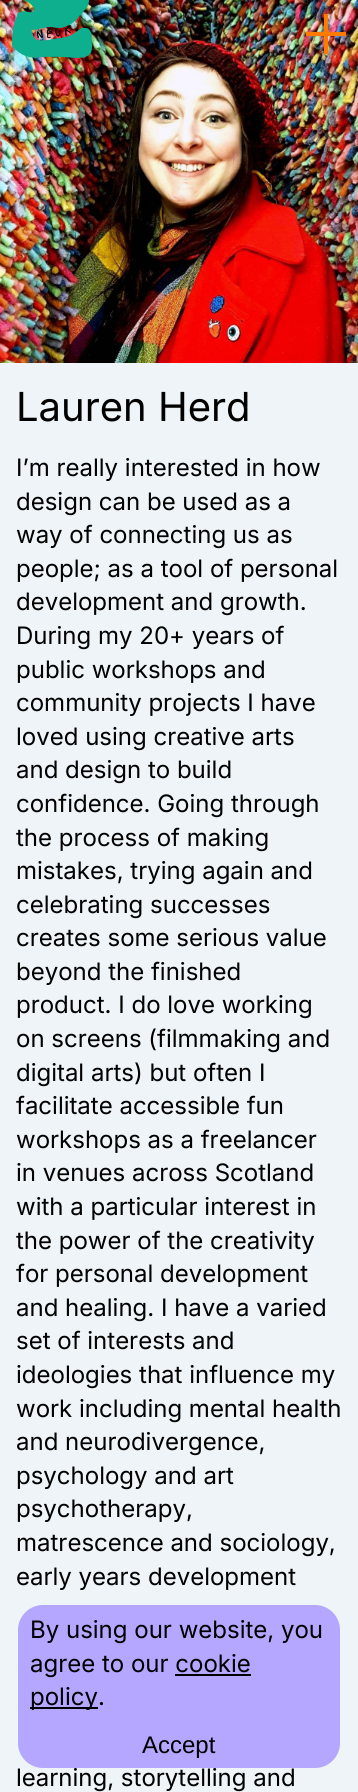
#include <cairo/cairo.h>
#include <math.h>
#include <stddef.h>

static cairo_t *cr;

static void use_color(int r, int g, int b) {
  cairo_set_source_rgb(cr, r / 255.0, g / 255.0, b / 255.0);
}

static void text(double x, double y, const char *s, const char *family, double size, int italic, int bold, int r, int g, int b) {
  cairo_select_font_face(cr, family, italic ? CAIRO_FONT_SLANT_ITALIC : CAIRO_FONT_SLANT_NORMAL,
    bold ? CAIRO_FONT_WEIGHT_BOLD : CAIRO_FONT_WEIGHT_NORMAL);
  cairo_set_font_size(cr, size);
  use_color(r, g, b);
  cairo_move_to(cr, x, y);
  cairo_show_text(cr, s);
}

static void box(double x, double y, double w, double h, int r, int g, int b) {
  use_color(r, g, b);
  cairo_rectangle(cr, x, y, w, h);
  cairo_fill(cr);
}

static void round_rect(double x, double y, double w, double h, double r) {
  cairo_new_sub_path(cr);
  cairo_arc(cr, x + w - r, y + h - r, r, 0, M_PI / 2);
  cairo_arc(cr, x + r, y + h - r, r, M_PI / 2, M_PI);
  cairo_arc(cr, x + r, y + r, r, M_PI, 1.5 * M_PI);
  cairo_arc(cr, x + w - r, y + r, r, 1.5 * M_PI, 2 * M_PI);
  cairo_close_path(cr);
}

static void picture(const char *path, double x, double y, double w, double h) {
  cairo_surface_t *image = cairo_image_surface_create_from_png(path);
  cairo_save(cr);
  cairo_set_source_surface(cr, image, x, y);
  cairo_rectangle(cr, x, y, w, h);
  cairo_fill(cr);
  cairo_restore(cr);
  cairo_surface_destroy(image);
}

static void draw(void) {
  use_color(238, 244, 247);
  cairo_paint(cr);
  picture("img_02.png", 0, 0, 358, 363);
  picture("img_01.png", 12, 0, 80, 58);
  box(306, 32, 40, 4, 255, 122, 0);
  box(324, 14, 4, 40, 255, 122, 0);
  use_color(181, 167, 255);
  round_rect(18, 1605, 322, 163, 25);
  cairo_fill(cr);
  box(175, 1674, 76, 2, 0, 0, 0);
  box(30, 1707, 68, 2, 0, 0, 0);
  text(16, 421, "Lauren Herd", "Inter", 40, 0, 0, 0, 0, 0);
  text(16, 476, "I’m really interested in how", "Inter", 24, 0, 0, 0, 0, 0);
  text(16, 510, "design can be used as a", "Inter", 24, 0, 0, 0, 0, 0);
  text(16, 543, "way of connecting us as", "Inter", 24, 0, 0, 0, 0, 0);
  text(16, 577, "people; as a tool of personal", "Inter", 24, 0, 0, 0, 0, 0);
  text(16, 610, "development and growth.", "Inter", 24, 0, 0, 0, 0, 0);
  text(16, 644, "During my 20+ years of", "Inter", 24, 0, 0, 0, 0, 0);
  text(16, 678, "public workshops and", "Inter", 24, 0, 0, 0, 0, 0);
  text(16, 711, "community projects I have", "Inter", 24, 0, 0, 0, 0, 0);
  text(16, 745, "loved using creative arts", "Inter", 24, 0, 0, 0, 0, 0);
  text(16, 778, "and design to build", "Inter", 24, 0, 0, 0, 0, 0);
  text(16, 812, "confidence. Going through", "Inter", 24, 0, 0, 0, 0, 0);
  text(16, 846, "the process of making", "Inter", 24, 0, 0, 0, 0, 0);
  text(16, 879, "mistakes, trying again and", "Inter", 24, 0, 0, 0, 0, 0);
  text(16, 913, "celebrating successes", "Inter", 24, 0, 0, 0, 0, 0);
  text(16, 946, "creates some serious value", "Inter", 24, 0, 0, 0, 0, 0);
  text(16, 980, "beyond the finished", "Inter", 24, 0, 0, 0, 0, 0);
  text(16, 1013, "product. I do love working", "Inter", 24, 0, 0, 0, 0, 0);
  text(16, 1047, "on screens (filmmaking and", "Inter", 24, 0, 0, 0, 0, 0);
  text(16, 1081, "digital arts) but often I", "Inter", 24, 0, 0, 0, 0, 0);
  text(16, 1114, "facilitate accessible fun", "Inter", 24, 0, 0, 0, 0, 0);
  text(16, 1148, "workshops as a freelancer", "Inter", 24, 0, 0, 0, 0, 0);
  text(16, 1181, "in venues across Scotland", "Inter", 24, 0, 0, 0, 0, 0);
  text(16, 1215, "with a particular interest in", "Inter", 24, 0, 0, 0, 0, 0);
  text(16, 1249, "the power of the creativity", "Inter", 24, 0, 0, 0, 0, 0);
  text(16, 1282, "for personal development", "Inter", 24, 0, 0, 0, 0, 0);
  text(16, 1316, "and healing. I have a varied", "Inter", 24, 0, 0, 0, 0, 0);
  text(16, 1349, "set of interests and", "Inter", 24, 0, 0, 0, 0, 0);
  text(16, 1383, "ideologies that influence my", "Inter", 24, 0, 0, 0, 0, 0);
  text(16, 1417, "work including mental health", "Inter", 24, 0, 0, 0, 0, 0);
  text(16, 1450, "and neurodivergence,", "Inter", 24, 0, 0, 0, 0, 0);
  text(16, 1484, "psychology and art", "Inter", 24, 0, 0, 0, 0, 0);
  text(16, 1517, "psychotherapy,", "Inter", 24, 0, 0, 0, 0, 0);
  text(16, 1551, "matrescence and sociology,", "Inter", 24, 0, 0, 0, 0, 0);
  text(16, 1585, "early years development", "Inter", 24, 0, 0, 0, 0, 0);
  text(16, 1786, "learning, storytelling and", "Inter", 24, 0, 0, 0, 0, 0);
  text(30, 1638, "By using our website, you", "Inter", 24, 0, 0, 0, 0, 0);
  text(30, 1672, "agree to our cookie", "Inter", 24, 0, 0, 0, 0, 0);
  text(30, 1705, "policy.", "Inter", 24, 0, 0, 0, 0, 0);
  text(142, 1753, "Accept", "Liberation Sans", 24, 0, 0, 0, 0, 0);
}

int main(void) {
  cairo_surface_t *surface = cairo_image_surface_create(CAIRO_FORMAT_RGB24, 358, 1792);
  cr = cairo_create(surface);
  cairo_font_options_t *options = cairo_font_options_create();
  cairo_font_options_set_hint_metrics(options, CAIRO_HINT_METRICS_OFF);
  cairo_font_options_set_hint_style(options, CAIRO_HINT_STYLE_NONE);
  cairo_set_font_options(cr, options);
  cairo_set_miter_limit(cr, 4);
  draw();
  cairo_surface_write_to_png(surface, "out.png");
  cairo_font_options_destroy(options);
  cairo_destroy(cr);
  cairo_surface_destroy(surface);
  return 0;
}
